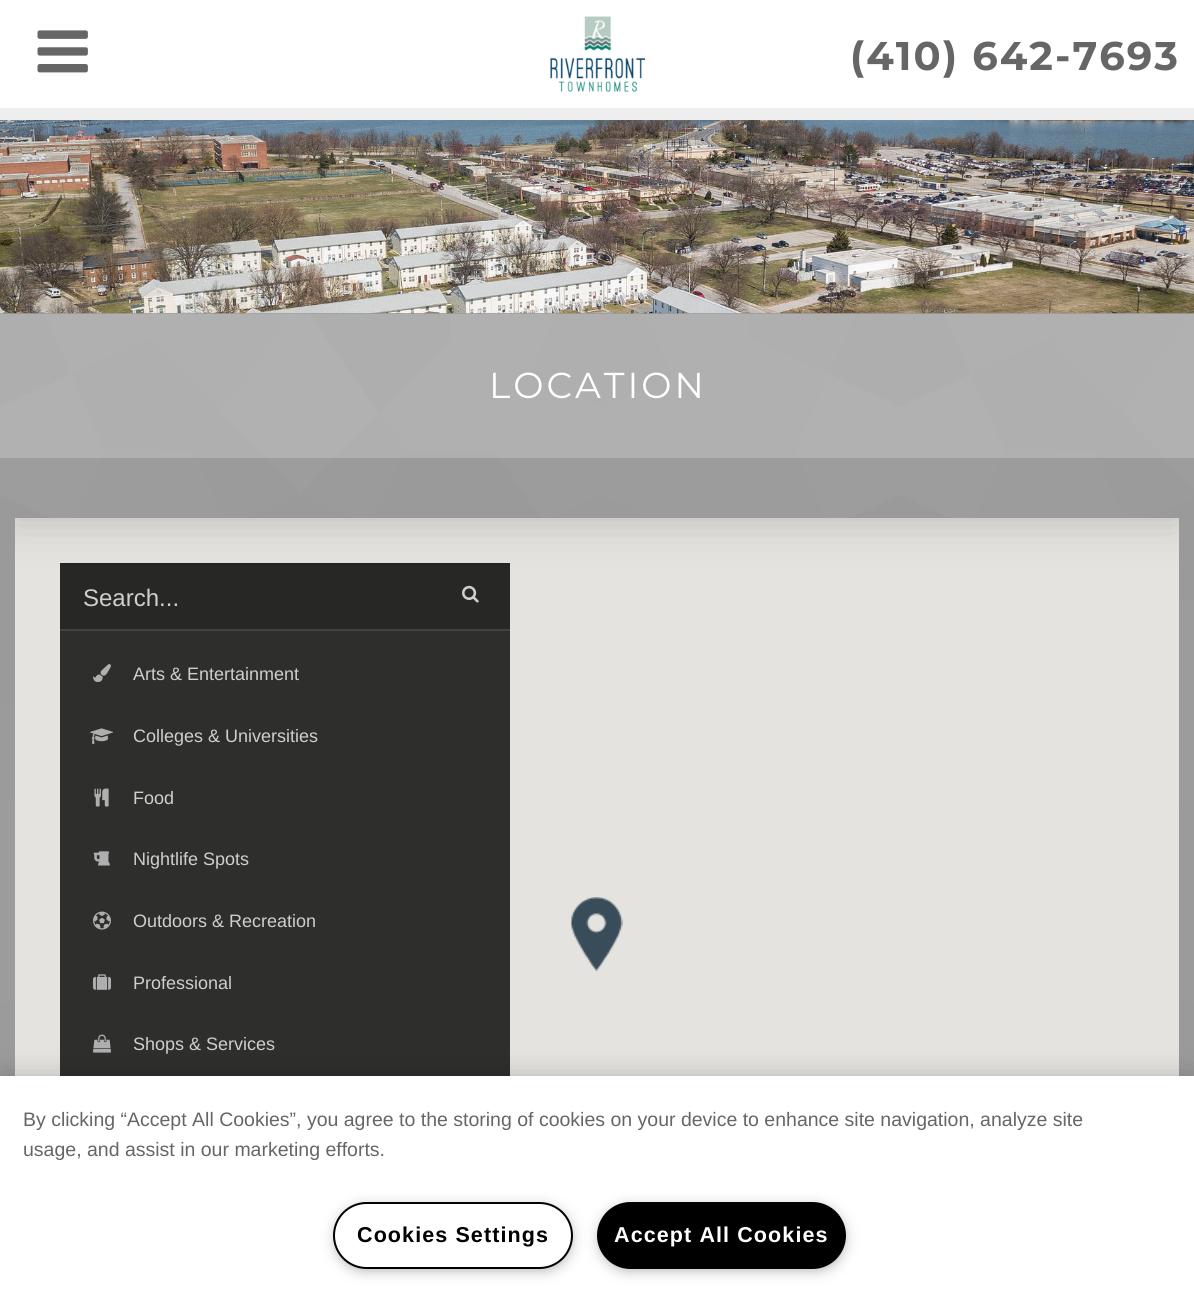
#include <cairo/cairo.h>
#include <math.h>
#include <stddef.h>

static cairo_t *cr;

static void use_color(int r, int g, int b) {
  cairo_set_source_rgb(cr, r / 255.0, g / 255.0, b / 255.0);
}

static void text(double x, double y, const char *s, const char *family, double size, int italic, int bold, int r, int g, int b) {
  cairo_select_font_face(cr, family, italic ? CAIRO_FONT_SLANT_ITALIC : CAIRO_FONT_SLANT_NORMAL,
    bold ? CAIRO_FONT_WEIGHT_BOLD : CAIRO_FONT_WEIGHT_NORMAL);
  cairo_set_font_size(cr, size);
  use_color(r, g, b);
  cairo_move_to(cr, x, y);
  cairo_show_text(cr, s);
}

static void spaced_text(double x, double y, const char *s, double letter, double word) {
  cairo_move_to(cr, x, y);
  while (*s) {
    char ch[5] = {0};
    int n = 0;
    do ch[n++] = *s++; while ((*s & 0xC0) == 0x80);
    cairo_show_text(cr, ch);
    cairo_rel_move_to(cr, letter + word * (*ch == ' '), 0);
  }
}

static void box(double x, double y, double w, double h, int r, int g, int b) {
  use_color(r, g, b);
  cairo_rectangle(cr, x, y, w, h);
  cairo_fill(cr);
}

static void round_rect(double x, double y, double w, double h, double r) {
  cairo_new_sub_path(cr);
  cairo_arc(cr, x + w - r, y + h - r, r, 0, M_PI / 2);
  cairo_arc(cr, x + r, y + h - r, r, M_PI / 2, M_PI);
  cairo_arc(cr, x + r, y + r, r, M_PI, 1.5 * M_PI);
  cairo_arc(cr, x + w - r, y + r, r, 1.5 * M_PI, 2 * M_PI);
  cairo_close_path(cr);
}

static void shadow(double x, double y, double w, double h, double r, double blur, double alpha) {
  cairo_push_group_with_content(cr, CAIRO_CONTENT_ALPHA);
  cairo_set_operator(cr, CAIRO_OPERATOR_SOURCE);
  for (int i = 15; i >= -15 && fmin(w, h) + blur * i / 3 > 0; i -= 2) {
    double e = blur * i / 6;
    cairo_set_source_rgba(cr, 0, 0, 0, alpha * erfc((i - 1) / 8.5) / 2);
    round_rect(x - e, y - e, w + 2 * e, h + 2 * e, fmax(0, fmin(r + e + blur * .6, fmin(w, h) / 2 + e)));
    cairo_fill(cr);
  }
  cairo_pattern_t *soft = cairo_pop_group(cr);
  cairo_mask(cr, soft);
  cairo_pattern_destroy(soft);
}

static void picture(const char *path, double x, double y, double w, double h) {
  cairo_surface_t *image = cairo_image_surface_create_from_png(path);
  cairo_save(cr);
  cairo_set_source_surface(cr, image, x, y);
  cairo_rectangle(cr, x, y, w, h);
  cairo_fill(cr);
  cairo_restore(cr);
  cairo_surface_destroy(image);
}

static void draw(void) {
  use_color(146, 145, 145);
  cairo_paint(cr);
  picture("img_01.png", 0, 313, 1194, 763);
  picture("img_04.png", 0, 120, 1194, 194);
  use_color(0, 0, 0);
  shadow(3, 3, 1188, 114, 0, 45, 0.1);
  box(0, 0, 1194, 108, 255, 255, 255);
  box(0, 108, 1194, 12, 238, 238, 238);
  picture("img_02.png", 37, 30, 51, 43);
  picture("img_03.png", 550, 16, 95, 76);
  cairo_set_source_rgba(cr, 1, 1, 1, 0.2);
  cairo_rectangle(cr, 0, 314, 1194, 144);
  cairo_fill(cr);
  box(15, 518, 1164, 558, 229, 227, 223);
  cairo_save(cr);
  cairo_rectangle(cr, 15, 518, 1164, 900);
  cairo_clip(cr);
  use_color(0, 0, 0);
  shadow(15, 443, 1164, 75, 0, 22.5, 0.2);
  cairo_restore(cr);
  picture("img_05.png", 570, 897, 53, 74);
  box(60, 565, 450, 64, 39, 39, 38);
  box(60, 629, 450, 2, 67, 67, 66);
  box(60, 563, 450, 2, 36, 36, 35);
  picture("img_06.png", 462, 585, 17, 18);
  box(60, 631, 450, 445, 46, 46, 45);
  picture("img_07.png", 93, 664, 18, 18);
  picture("img_08.png", 90, 728, 23, 16);
  picture("img_09.png", 94, 788, 15, 19);
  picture("img_10.png", 93, 851, 17, 15);
  picture("img_11.png", 93, 911, 18, 19);
  picture("img_12.png", 93, 974, 18, 16);
  picture("img_13.png", 93, 1034, 18, 19);
  use_color(0, 0, 0);
  shadow(0, 1076, 1194, 229, 0, 13.5, 0.2);
  box(0, 1076, 1194, 229, 255, 255, 255);
  use_color(153, 153, 153);
  shadow(338, 1209, 231, 59, 29.5, 7.5, 1);
  use_color(255, 255, 255);
  round_rect(334, 1203, 238, 65, 32.5);
  cairo_fill_preserve(cr);
  use_color(0, 0, 0);
  cairo_stroke(cr);
  use_color(153, 153, 153);
  shadow(602, 1209, 240, 59, 29.5, 7.5, 1);
  use_color(0, 0, 0);
  round_rect(598, 1203, 247, 65, 32.5);
  cairo_fill_preserve(cr);
  cairo_stroke(cr);
  cairo_select_font_face(cr, "Montserrat", CAIRO_FONT_SLANT_NORMAL, CAIRO_FONT_WEIGHT_BOLD);
  cairo_set_font_size(cr, 40);
  use_color(102, 102, 102);
  spaced_text(850, 70, "(410) 642-7693", 2, 0);
  cairo_select_font_face(cr, "Montserrat", CAIRO_FONT_SLANT_NORMAL, CAIRO_FONT_WEIGHT_NORMAL);
  cairo_set_font_size(cr, 36);
  use_color(255, 255, 255);
  spaced_text(489, 398, "LOCATION", 3, 0);
  text(83, 606, "Search...", "Liberation Sans", 24, 0, 0, 207, 207, 207);
  text(133, 680, "Arts & Entertainment", "Liberation Sans", 18, 0, 0, 207, 207, 207);
  text(133, 742, "Colleges & Universities", "Liberation Sans", 18, 0, 0, 207, 207, 207);
  text(133, 804, "Food", "Liberation Sans", 18, 0, 0, 207, 207, 207);
  text(133, 865, "Nightlife Spots", "Liberation Sans", 18, 0, 0, 207, 207, 207);
  text(133, 927, "Outdoors & Recreation", "Liberation Sans", 18, 0, 0, 207, 207, 207);
  text(133, 989, "Professional", "Liberation Sans", 18, 0, 0, 207, 207, 207);
  text(133, 1050, "Shops & Services", "Liberation Sans", 18, 0, 0, 207, 207, 207);
  text(23, 1126, "By clicking “Accept All Cookies”, you agree to the storing of cookies on your device to enhance site navigation, analyze site", "Liberation Sans", 19.5, 0, 0, 102, 102, 102);
  text(23, 1156, "usage, and assist in our marketing efforts.", "Liberation Sans", 19.5, 0, 0, 102, 102, 102);
  cairo_select_font_face(cr, "Liberation Sans", CAIRO_FONT_SLANT_NORMAL, CAIRO_FONT_WEIGHT_BOLD);
  cairo_set_font_size(cr, 21.5);
  use_color(0, 0, 0);
  spaced_text(357, 1242, "Cookies Settings", 1.1, 0);
  use_color(255, 255, 255);
  spaced_text(614, 1242, "Accept All Cookies", 1.1, 0);
}

int main(void) {
  cairo_surface_t *surface = cairo_image_surface_create(CAIRO_FORMAT_RGB24, 1194, 1305);
  cr = cairo_create(surface);
  cairo_font_options_t *options = cairo_font_options_create();
  cairo_font_options_set_hint_metrics(options, CAIRO_HINT_METRICS_OFF);
  cairo_font_options_set_hint_style(options, CAIRO_HINT_STYLE_NONE);
  cairo_set_font_options(cr, options);
  cairo_set_miter_limit(cr, 4);
  draw();
  cairo_surface_write_to_png(surface, "out.png");
  cairo_font_options_destroy(options);
  cairo_destroy(cr);
  cairo_surface_destroy(surface);
  return 0;
}
